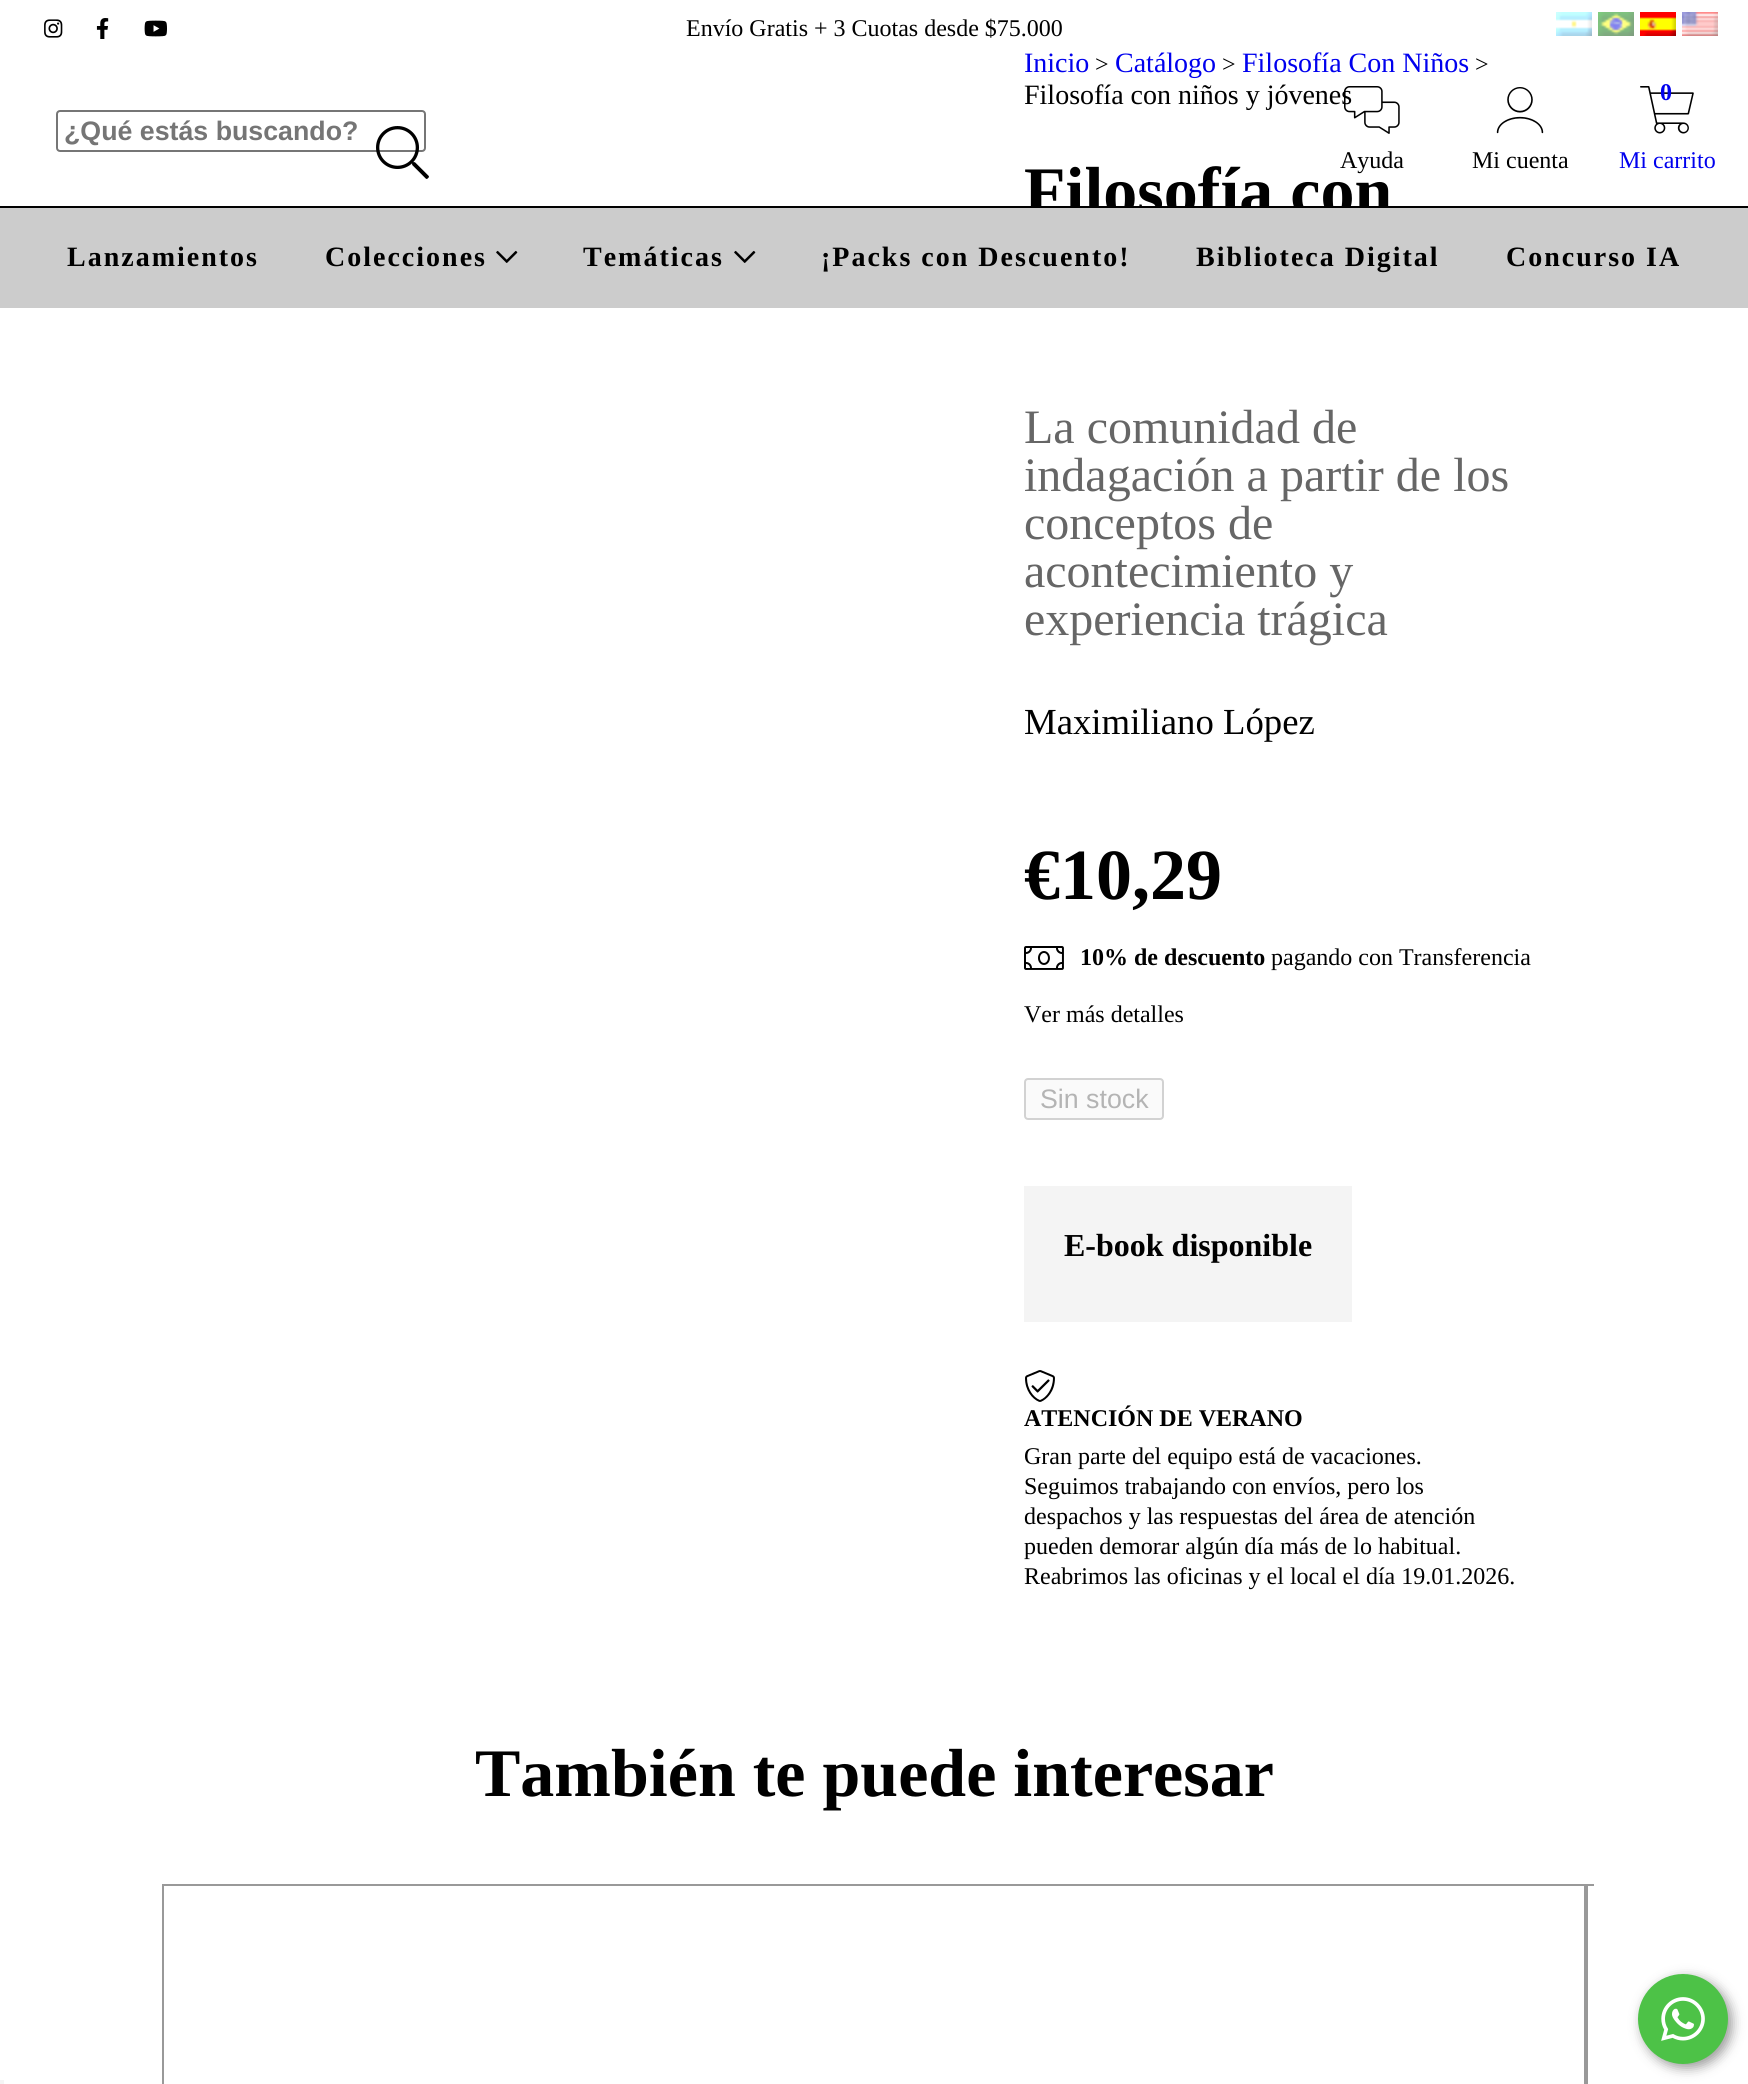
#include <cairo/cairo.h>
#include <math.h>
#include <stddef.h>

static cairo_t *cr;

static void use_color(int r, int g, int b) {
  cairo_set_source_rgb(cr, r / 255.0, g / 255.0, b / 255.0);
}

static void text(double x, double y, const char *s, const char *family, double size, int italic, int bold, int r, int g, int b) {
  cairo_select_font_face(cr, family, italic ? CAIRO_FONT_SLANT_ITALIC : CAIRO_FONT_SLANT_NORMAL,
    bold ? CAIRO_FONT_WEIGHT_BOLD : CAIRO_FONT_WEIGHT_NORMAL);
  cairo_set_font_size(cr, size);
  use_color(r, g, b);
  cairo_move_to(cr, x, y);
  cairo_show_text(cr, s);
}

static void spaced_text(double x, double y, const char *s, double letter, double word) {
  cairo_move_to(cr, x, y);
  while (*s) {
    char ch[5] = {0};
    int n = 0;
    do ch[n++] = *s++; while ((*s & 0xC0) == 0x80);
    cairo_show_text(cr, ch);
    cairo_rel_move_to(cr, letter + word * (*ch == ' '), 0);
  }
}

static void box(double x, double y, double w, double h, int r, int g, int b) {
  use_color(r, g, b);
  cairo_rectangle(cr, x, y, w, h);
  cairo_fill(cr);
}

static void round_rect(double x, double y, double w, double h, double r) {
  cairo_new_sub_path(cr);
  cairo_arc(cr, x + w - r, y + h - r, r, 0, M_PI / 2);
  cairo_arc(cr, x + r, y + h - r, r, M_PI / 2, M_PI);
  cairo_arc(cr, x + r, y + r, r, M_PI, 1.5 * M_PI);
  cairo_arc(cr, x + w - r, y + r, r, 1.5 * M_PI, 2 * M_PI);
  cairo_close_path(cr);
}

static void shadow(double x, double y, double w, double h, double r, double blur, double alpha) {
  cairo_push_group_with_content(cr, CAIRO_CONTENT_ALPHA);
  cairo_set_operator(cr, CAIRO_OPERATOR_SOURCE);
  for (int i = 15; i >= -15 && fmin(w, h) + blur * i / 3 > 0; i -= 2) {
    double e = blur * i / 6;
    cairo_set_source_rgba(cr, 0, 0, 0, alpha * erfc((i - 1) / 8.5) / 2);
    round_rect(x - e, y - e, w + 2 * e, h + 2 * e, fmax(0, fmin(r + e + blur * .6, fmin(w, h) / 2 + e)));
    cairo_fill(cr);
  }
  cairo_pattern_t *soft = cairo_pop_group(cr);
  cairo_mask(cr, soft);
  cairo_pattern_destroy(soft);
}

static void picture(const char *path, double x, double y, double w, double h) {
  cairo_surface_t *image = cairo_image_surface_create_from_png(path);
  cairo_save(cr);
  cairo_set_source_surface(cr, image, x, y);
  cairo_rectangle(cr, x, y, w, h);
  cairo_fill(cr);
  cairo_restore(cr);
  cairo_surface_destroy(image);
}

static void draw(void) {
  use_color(255, 255, 255);
  cairo_paint(cr);
  picture("img_01.png", 44, 19, 19, 19);
  picture("img_02.png", 96, 18, 13, 21);
  picture("img_03.png", 144, 20, 23, 17);
  picture("img_04.png", 1556, 12, 36, 24);
  picture("img_05.png", 1598, 12, 36, 24);
  picture("img_06.png", 1640, 12, 36, 24);
  picture("img_07.png", 1682, 12, 36, 24);
  round_rect(57, 111, 368, 40, 3);
  use_color(118, 118, 118);
  cairo_stroke(cr);
  picture("img_08.png", 376, 126, 53, 53);
  picture("img_10.png", 1496, 87, 48, 47);
  picture("img_11.png", 1640, 86, 54, 48);
  box(0, 206, 1748, 2, 0, 0, 0);
  picture("img_13.png", 1024, 946, 40, 24);
  use_color(250, 250, 250);
  round_rect(1025, 1079, 138, 40, 3);
  cairo_fill_preserve(cr);
  use_color(210, 210, 210);
  cairo_stroke(cr);
  box(1024, 1186, 328, 136, 244, 244, 244);
  picture("img_14.png", 1025, 1370, 30, 32);
  cairo_rectangle(cr, 163, 1885, 1422, 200);
  use_color(153, 153, 153);
  cairo_stroke(cr);
  cairo_save(cr);
  cairo_rectangle(cr, 154, 1876, 1440, 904);
  cairo_clip(cr);
  cairo_rectangle(cr, 1587, 1885, 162, 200);
  cairo_stroke(cr);
  cairo_restore(cr);
  box(0, 2080, 4, 4, 245, 245, 245);
  use_color(0, 0, 0);
  shadow(1642, 1978, 90, 90, 45, 6, 0.4);
  use_color(77, 194, 71);
  cairo_arc(cr, 1683, 2019, 45, 0, 2 * M_PI);
  cairo_fill(cr);
  picture("img_15.png", 1661, 1997, 44, 44);
  text(686, 36, "Envío Gratis + 3 Cuotas desde $75.000", "Liberation Serif", 24, 0, 0, 0, 0, 0);
  text(64, 140, "¿Qué estás buscando?", "Liberation Sans", 26.75, 0, 1, 117, 117, 117);
  text(1340, 168, "Ayuda", "Liberation Serif", 24, 0, 0, 0, 0, 0);
  text(1472, 168, "Mi cuenta", "Liberation Serif", 24, 0, 0, 0, 0, 0);
  text(1660, 100, "0", "Liberation Serif", 24, 0, 1, 0, 0, 238);
  text(1619, 168, "Mi carrito", "Liberation Serif", 24, 0, 0, 0, 0, 238);
  text(1024, 72, "Inicio", "Liberation Serif", 28, 0, 0, 0, 0, 238);
  text(1095, 72, ">", "Liberation Serif", 24, 0, 0, 0, 0, 0);
  text(1115, 72, "Catálogo", "Liberation Serif", 28, 0, 0, 0, 0, 238);
  text(1222, 72, ">", "Liberation Serif", 24, 0, 0, 0, 0, 0);
  text(1242, 72, "Filosofía Con Niños", "Liberation Serif", 28, 0, 0, 0, 0, 238);
  text(1475, 72, ">", "Liberation Serif", 24, 0, 0, 0, 0, 0);
  text(1024, 104, "Filosofía con niños y jóvenes", "Liberation Serif", 28, 0, 0, 0, 0, 0);
  picture("img_09.png", 1344, 86, 56, 48);
  text(1024, 214, "Filosofía con", "Liberation Serif", 68, 0, 1, 0, 0, 0);
  box(0, 208, 1748, 100, 204, 204, 204);
  picture("img_12.png", 734, 250, 22, 13);
  picture("img_12.png", 496, 250, 22, 13);
  cairo_set_font_size(cr, 28);
  use_color(0, 0, 0);
  spaced_text(1506, 266, "Concurso IA", 2, 0);
  spaced_text(1196, 266, "Biblioteca Digital", 2, 0);
  spaced_text(821, 266, "¡Packs con Descuento!", 2, 0);
  spaced_text(583, 266, "Temáticas", 2, 0);
  spaced_text(325, 266, "Colecciones", 2, 0);
  spaced_text(67, 266, "Lanzamientos", 2, 0);
  text(1024, 443, "La comunidad de", "Liberation Serif", 48, 0, 0, 102, 102, 102);
  text(1024, 491, "indagación a partir de los", "Liberation Serif", 48, 0, 0, 102, 102, 102);
  text(1024, 539, "conceptos de", "Liberation Serif", 48, 0, 0, 102, 102, 102);
  text(1024, 587, "acontecimiento y", "Liberation Serif", 48, 0, 0, 102, 102, 102);
  text(1024, 635, "experiencia trágica", "Liberation Serif", 48, 0, 0, 102, 102, 102);
  text(1024, 734, "Maximiliano López", "Liberation Serif", 36.75, 0, 0, 0, 0, 0);
  text(1024, 899, "€10,29", "Liberation Serif", 72, 0, 1, 0, 0, 0);
  text(1080, 965, "10% de descuento", "Liberation Serif", 24, 0, 1, 0, 0, 0);
  text(1271, 965, "pagando con Transferencia", "Liberation Serif", 24, 0, 0, 0, 0, 0);
  text(1024, 1022, "Ver más detalles", "Liberation Serif", 24, 0, 0, 0, 0, 0);
  text(1040, 1108, "Sin stock", "Liberation Sans", 26.75, 0, 0, 180, 180, 180);
  text(1064, 1256, "E-book disponible", "Liberation Serif", 32, 0, 1, 0, 0, 0);
  text(1024, 1426, "ATENCIÓN DE VERANO", "Liberation Serif", 24, 0, 1, 0, 0, 0);
  text(1024, 1464, "Gran parte del equipo está de vacaciones.", "Liberation Serif", 24, 0, 0, 0, 0, 0);
  text(1024, 1494, "Seguimos trabajando con envíos, pero los", "Liberation Serif", 24, 0, 0, 0, 0, 0);
  text(1024, 1524, "despachos y las respuestas del área de atención", "Liberation Serif", 24, 0, 0, 0, 0, 0);
  text(1024, 1554, "pueden demorar algún día más de lo habitual.", "Liberation Serif", 24, 0, 0, 0, 0, 0);
  text(1024, 1584, "Reabrimos las oficinas y el local el día 19.01.2026.", "Liberation Serif", 24, 0, 0, 0, 0, 0);
  text(475, 1796, "También te puede interesar", "Liberation Serif", 68, 0, 1, 0, 0, 0);
}

int main(void) {
  cairo_surface_t *surface = cairo_image_surface_create(CAIRO_FORMAT_RGB24, 1748, 2084);
  cr = cairo_create(surface);
  cairo_font_options_t *options = cairo_font_options_create();
  cairo_font_options_set_hint_metrics(options, CAIRO_HINT_METRICS_OFF);
  cairo_font_options_set_hint_style(options, CAIRO_HINT_STYLE_NONE);
  cairo_set_font_options(cr, options);
  cairo_set_miter_limit(cr, 4);
  draw();
  cairo_surface_write_to_png(surface, "out.png");
  cairo_font_options_destroy(options);
  cairo_destroy(cr);
  cairo_surface_destroy(surface);
  return 0;
}
